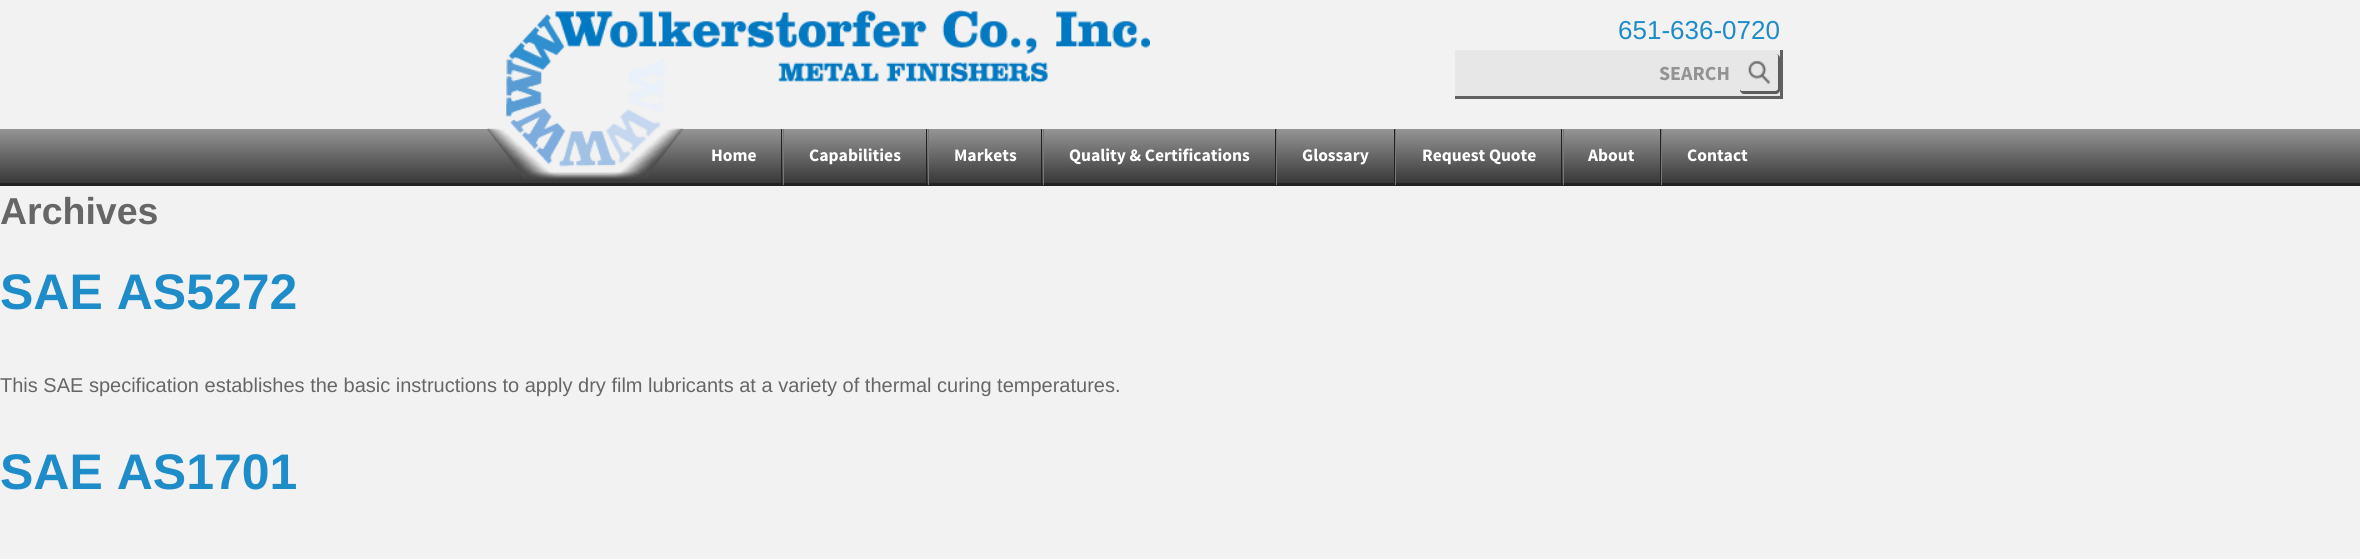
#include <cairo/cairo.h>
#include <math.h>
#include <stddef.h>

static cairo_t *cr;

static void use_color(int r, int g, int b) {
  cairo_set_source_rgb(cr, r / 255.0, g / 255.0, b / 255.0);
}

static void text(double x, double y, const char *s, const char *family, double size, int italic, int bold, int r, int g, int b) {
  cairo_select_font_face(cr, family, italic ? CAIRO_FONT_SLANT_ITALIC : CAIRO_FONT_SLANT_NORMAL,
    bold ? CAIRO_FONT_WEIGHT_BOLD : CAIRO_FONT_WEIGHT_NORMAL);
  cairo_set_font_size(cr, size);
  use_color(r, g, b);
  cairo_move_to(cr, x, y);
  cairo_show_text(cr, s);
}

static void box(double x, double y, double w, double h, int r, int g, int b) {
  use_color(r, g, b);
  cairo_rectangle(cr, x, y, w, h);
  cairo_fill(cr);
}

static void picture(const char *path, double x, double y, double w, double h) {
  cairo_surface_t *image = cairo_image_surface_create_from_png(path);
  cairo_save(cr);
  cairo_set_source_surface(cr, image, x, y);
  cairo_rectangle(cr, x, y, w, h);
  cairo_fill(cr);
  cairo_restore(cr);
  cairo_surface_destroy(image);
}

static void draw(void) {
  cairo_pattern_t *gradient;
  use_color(242, 242, 242);
  cairo_paint(cr);
  gradient = cairo_pattern_create_linear(1180, 129, 1180, 183);
  cairo_pattern_add_color_stop_rgba(gradient, 0, 0.584, 0.584, 0.584, 1);
  cairo_pattern_add_color_stop_rgba(gradient, 1, 0.22, 0.22, 0.22, 1);
  cairo_set_source(cr, gradient);
  cairo_pattern_destroy(gradient);
  cairo_rectangle(cr, 0, 129, 2360, 54);
  cairo_fill(cr);
  picture("img_01.png", 487, 10, 663, 169);
  use_color(97, 97, 97);
  cairo_new_path(cr);
  cairo_move_to(cr, 1783, 50);
  cairo_line_to(cr, 1780, 50);
  cairo_line_to(cr, 1780, 96);
  cairo_line_to(cr, 1455, 96);
  cairo_line_to(cr, 1455, 99);
  cairo_line_to(cr, 1783, 99);
  cairo_close_path(cr);
  cairo_fill(cr);
  box(1455, 50, 325, 46, 231, 231, 231);
  use_color(92, 92, 92);
  cairo_new_path(cr);
  cairo_move_to(cr, 1740, 89);
  cairo_line_to(cr, 1740, 90);
  cairo_curve_to(cr, 1740, 92, 1742, 94, 1744, 94);
  cairo_line_to(cr, 1776, 94);
  cairo_curve_to(cr, 1778, 94, 1780, 92, 1780, 90);
  cairo_line_to(cr, 1780, 58);
  cairo_curve_to(cr, 1780, 56, 1778, 54, 1776, 54);
  cairo_curve_to(cr, 1777, 54, 1778, 55, 1778, 56);
  cairo_line_to(cr, 1778, 89);
  cairo_curve_to(cr, 1778, 90, 1776, 91, 1775, 91);
  cairo_line_to(cr, 1742, 91);
  cairo_curve_to(cr, 1741, 91, 1740, 90, 1740, 89);
  cairo_close_path(cr);
  cairo_fill(cr);
  picture("img_02.png", 1748, 61, 22, 23);
  box(0, 183, 2360, 3, 34, 34, 34);
  box(781, 129, 1, 56, 34, 34, 34);
  box(926, 129, 1, 56, 34, 34, 34);
  box(783, 129, 1, 56, 119, 119, 119);
  box(1041, 129, 1, 56, 34, 34, 34);
  box(928, 129, 1, 56, 119, 119, 119);
  box(1275, 129, 1, 56, 34, 34, 34);
  box(1043, 129, 1, 56, 119, 119, 119);
  box(1394, 129, 1, 56, 34, 34, 34);
  box(1276, 129, 1, 56, 119, 119, 119);
  box(1561, 129, 1, 56, 34, 34, 34);
  box(1395, 129, 1, 56, 119, 119, 119);
  box(1660, 129, 1, 56, 34, 34, 34);
  box(1563, 129, 1, 56, 119, 119, 119);
  box(1661, 129, 1, 56, 119, 119, 119);
  text(1618, 39, "651-636-0720", "Liberation Sans", 26, 0, 0, 30, 140, 201);
  text(1659, 80, "SEARCH", "Source Sans Pro", 20, 0, 1, 147, 147, 147);
  text(711, 161, "Home", "Source Sans Pro", 17.5, 0, 1, 255, 255, 255);
  text(809, 161, "Capabilities", "Source Sans Pro", 17.5, 0, 1, 255, 255, 255);
  text(954, 161, "Markets", "Source Sans Pro", 17.5, 0, 1, 255, 255, 255);
  text(1069, 161, "Quality & Certifications", "Source Sans Pro", 17.5, 0, 1, 255, 255, 255);
  text(1302, 161, "Glossary", "Source Sans Pro", 17.5, 0, 1, 255, 255, 255);
  text(1422, 161, "Request Quote", "Source Sans Pro", 17.5, 0, 1, 255, 255, 255);
  text(1588, 161, "About", "Source Sans Pro", 17.5, 0, 1, 255, 255, 255);
  text(1687, 161, "Contact", "Source Sans Pro", 17.5, 0, 1, 255, 255, 255);
  text(0, 224, "Archives", "Liberation Sans", 37.5, 0, 1, 102, 102, 102);
  text(0, 309, "SAE AS5272", "Liberation Sans", 50, 0, 1, 30, 140, 201);
  text(0, 392, "This SAE specification establishes the basic instructions to apply dry film lubricants at a variety of thermal curing temperatures.", "Liberation Sans", 20, 0, 0, 102, 102, 102);
  text(0, 489, "SAE AS1701", "Liberation Sans", 50, 0, 1, 30, 140, 201);
}

int main(void) {
  cairo_surface_t *surface = cairo_image_surface_create(CAIRO_FORMAT_RGB24, 2360, 559);
  cr = cairo_create(surface);
  cairo_font_options_t *options = cairo_font_options_create();
  cairo_font_options_set_hint_metrics(options, CAIRO_HINT_METRICS_OFF);
  cairo_font_options_set_hint_style(options, CAIRO_HINT_STYLE_NONE);
  cairo_set_font_options(cr, options);
  cairo_set_miter_limit(cr, 4);
  draw();
  cairo_surface_write_to_png(surface, "out.png");
  cairo_font_options_destroy(options);
  cairo_destroy(cr);
  cairo_surface_destroy(surface);
  return 0;
}
